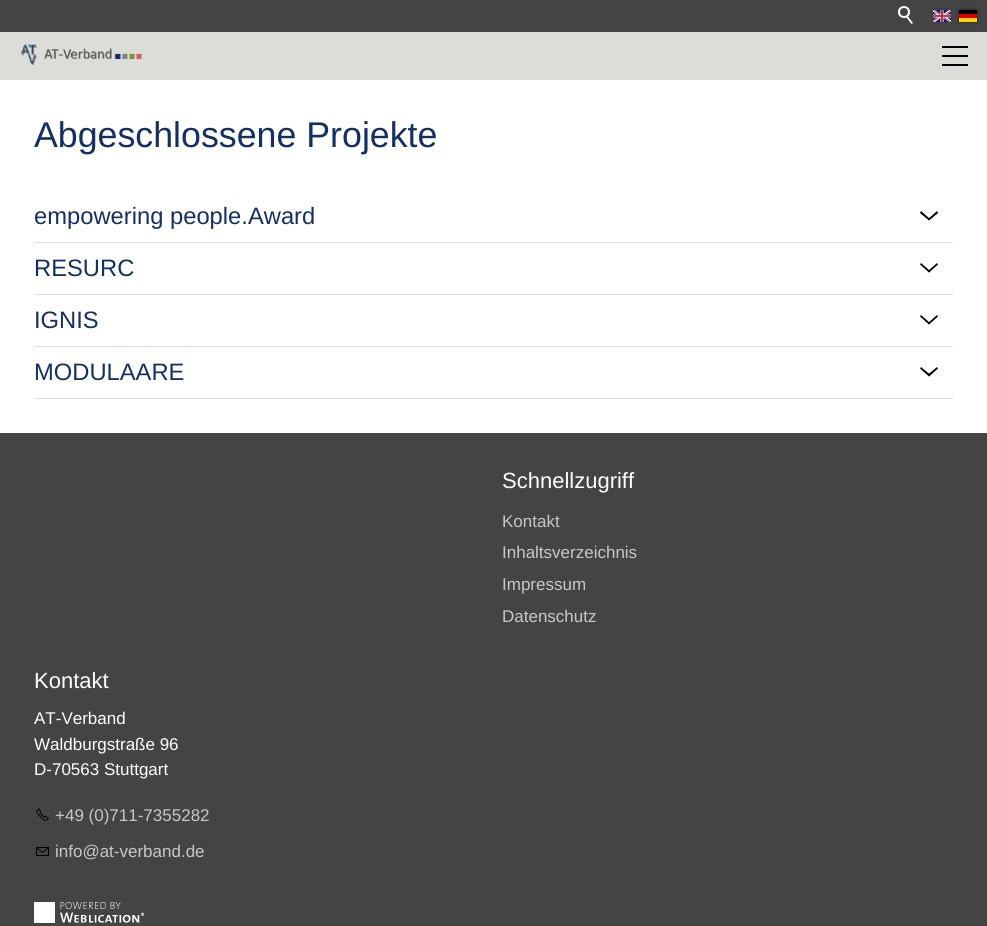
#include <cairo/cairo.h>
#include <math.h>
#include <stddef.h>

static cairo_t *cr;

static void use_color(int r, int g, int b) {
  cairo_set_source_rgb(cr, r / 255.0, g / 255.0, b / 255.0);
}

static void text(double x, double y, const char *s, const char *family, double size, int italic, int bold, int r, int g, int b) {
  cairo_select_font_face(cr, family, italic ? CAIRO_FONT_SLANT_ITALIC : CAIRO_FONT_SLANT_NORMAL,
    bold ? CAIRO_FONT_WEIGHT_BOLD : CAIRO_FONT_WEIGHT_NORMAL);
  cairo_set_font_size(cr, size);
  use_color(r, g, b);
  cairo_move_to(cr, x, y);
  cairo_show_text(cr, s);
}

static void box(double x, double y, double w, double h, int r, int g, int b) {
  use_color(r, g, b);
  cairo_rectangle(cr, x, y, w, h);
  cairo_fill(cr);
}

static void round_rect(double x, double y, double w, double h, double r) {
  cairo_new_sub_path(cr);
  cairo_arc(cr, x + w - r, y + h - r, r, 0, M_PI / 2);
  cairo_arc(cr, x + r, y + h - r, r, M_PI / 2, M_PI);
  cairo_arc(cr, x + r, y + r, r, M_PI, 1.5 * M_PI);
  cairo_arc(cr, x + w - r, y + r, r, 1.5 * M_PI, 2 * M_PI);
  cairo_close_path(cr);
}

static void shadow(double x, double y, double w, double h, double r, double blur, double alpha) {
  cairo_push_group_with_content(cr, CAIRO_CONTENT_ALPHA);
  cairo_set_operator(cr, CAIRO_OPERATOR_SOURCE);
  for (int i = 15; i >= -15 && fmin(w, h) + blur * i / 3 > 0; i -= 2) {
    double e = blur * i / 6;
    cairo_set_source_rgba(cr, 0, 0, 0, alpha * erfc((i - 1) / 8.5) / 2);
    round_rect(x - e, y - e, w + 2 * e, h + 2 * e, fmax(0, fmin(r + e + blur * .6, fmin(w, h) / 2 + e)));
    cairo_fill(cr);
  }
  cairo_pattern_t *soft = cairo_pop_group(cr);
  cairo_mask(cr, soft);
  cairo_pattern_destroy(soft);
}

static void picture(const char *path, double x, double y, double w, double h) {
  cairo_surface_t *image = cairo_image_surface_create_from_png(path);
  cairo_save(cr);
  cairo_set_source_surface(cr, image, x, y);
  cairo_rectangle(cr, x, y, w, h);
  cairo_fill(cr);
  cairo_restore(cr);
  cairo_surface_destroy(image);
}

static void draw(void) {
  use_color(255, 255, 255);
  cairo_paint(cr);
  box(0, 32, 987, 48, 220, 220, 217);
  box(0, 0, 987, 32, 68, 68, 68);
  cairo_arc(cr, 904, 12, 5, 0, 2 * M_PI);
  use_color(255, 255, 255);
  cairo_stroke(cr);
  cairo_new_path(cr);
  cairo_move_to(cr, 907.5, 16);
  cairo_line_to(cr, 913, 23);
  cairo_line_to(cr, 911.5, 24);
  cairo_line_to(cr, 906, 17);
  cairo_close_path(cr);
  cairo_fill(cr);
  use_color(0, 0, 0);
  shadow(933, 10, 18, 12, 0, 1.5, 0.2);
  box(933, 10, 18, 12, 255, 255, 255);
  picture("img_01.png", 933, 10, 18, 12);
  use_color(0, 0, 0);
  shadow(959, 10, 18, 12, 0, 1.5, 0.5);
  box(959, 10, 18, 4, 0, 0, 0);
  box(959, 14, 18, 4, 221, 0, 0);
  box(959, 18, 18, 4, 255, 206, 15);
  picture("img_02.png", 21, 44, 121, 21);
  box(942, 46, 26, 2, 0, 0, 0);
  box(942, 55, 26, 2, 0, 0, 0);
  box(942, 64, 26, 2, 0, 0, 0);
  box(34, 242, 919, 1, 221, 221, 221);
  use_color(0, 0, 0);
  cairo_new_path(cr);
  cairo_move_to(cr, 921, 211);
  cairo_line_to(cr, 930, 219);
  cairo_line_to(cr, 929, 220.5);
  cairo_line_to(cr, 920, 213);
  cairo_close_path(cr);
  cairo_fill(cr);
  cairo_new_path(cr);
  cairo_move_to(cr, 928, 219);
  cairo_line_to(cr, 937, 211);
  cairo_line_to(cr, 938, 213);
  cairo_line_to(cr, 929, 220.5);
  cairo_close_path(cr);
  cairo_fill(cr);
  box(34, 294, 919, 1, 221, 221, 221);
  use_color(0, 0, 0);
  cairo_new_path(cr);
  cairo_move_to(cr, 921, 263);
  cairo_line_to(cr, 930, 271);
  cairo_line_to(cr, 929, 272.5);
  cairo_line_to(cr, 920, 264.5);
  cairo_close_path(cr);
  cairo_fill(cr);
  cairo_new_path(cr);
  cairo_move_to(cr, 928, 271);
  cairo_line_to(cr, 937, 263);
  cairo_line_to(cr, 938, 264.5);
  cairo_line_to(cr, 929, 272.5);
  cairo_close_path(cr);
  cairo_fill(cr);
  box(34, 346, 919, 1, 221, 221, 221);
  use_color(0, 0, 0);
  cairo_new_path(cr);
  cairo_move_to(cr, 921, 315);
  cairo_line_to(cr, 930, 323);
  cairo_line_to(cr, 929, 324.5);
  cairo_line_to(cr, 920, 316.5);
  cairo_close_path(cr);
  cairo_fill(cr);
  cairo_new_path(cr);
  cairo_move_to(cr, 928, 323);
  cairo_line_to(cr, 937, 315);
  cairo_line_to(cr, 938, 316.5);
  cairo_line_to(cr, 929, 324.5);
  cairo_close_path(cr);
  cairo_fill(cr);
  box(34, 398, 919, 1, 221, 221, 221);
  use_color(0, 0, 0);
  cairo_new_path(cr);
  cairo_move_to(cr, 921, 367);
  cairo_line_to(cr, 930, 374.5);
  cairo_line_to(cr, 929, 376.5);
  cairo_line_to(cr, 920, 368.5);
  cairo_close_path(cr);
  cairo_fill(cr);
  cairo_new_path(cr);
  cairo_move_to(cr, 928, 374.5);
  cairo_line_to(cr, 937, 367);
  cairo_line_to(cr, 938, 368.5);
  cairo_line_to(cr, 929, 376.5);
  cairo_close_path(cr);
  cairo_fill(cr);
  box(0, 433, 987, 493, 68, 68, 68);
  picture("img_03.png", 36, 808, 13, 13);
  picture("img_04.png", 36, 847, 13, 9);
  picture("img_05.png", 34, 902, 111, 21);
  text(34, 147, "Abgeschlossene Projekte", "Liberation Sans", 35.75, 0, 0, 20, 48, 98);
  text(34, 224, "empowering people.Award", "Liberation Sans", 23.75, 0, 0, 20, 48, 98);
  text(34, 276, "RESURC", "Liberation Sans", 23.75, 0, 0, 20, 48, 98);
  text(34, 328, "IGNIS", "Liberation Sans", 23.75, 0, 0, 20, 48, 98);
  text(34, 380, "MODULAARE", "Liberation Sans", 23.75, 0, 0, 20, 48, 98);
  text(502, 488, "Schnellzugriff", "Liberation Sans", 22, 0, 0, 255, 255, 255);
  text(502, 527, "Kontakt", "Liberation Sans", 17, 0, 0, 199, 199, 199);
  text(502, 558, "Inhaltsverzeichnis", "Liberation Sans", 17, 0, 0, 199, 199, 199);
  text(502, 590, "Impressum", "Liberation Sans", 17, 0, 0, 199, 199, 199);
  text(502, 622, "Datenschutz", "Liberation Sans", 17, 0, 0, 199, 199, 199);
  text(34, 688, "Kontakt", "Liberation Sans", 22, 0, 0, 255, 255, 255);
  text(34, 724, "AT-Verband", "Liberation Sans", 17, 0, 0, 255, 255, 255);
  text(34, 750, "Waldburgstraße 96", "Liberation Sans", 17, 0, 0, 255, 255, 255);
  text(34, 775, "D-70563 Stuttgart", "Liberation Sans", 17, 0, 0, 255, 255, 255);
  text(55, 821, "+49 (0)711-7355282", "Liberation Sans", 17, 0, 0, 199, 199, 199);
  text(55, 857, "info@at-verband.de", "Liberation Sans", 17, 0, 0, 199, 199, 199);
}

int main(void) {
  cairo_surface_t *surface = cairo_image_surface_create(CAIRO_FORMAT_RGB24, 987, 926);
  cr = cairo_create(surface);
  cairo_font_options_t *options = cairo_font_options_create();
  cairo_font_options_set_hint_metrics(options, CAIRO_HINT_METRICS_OFF);
  cairo_font_options_set_hint_style(options, CAIRO_HINT_STYLE_NONE);
  cairo_set_font_options(cr, options);
  cairo_set_miter_limit(cr, 4);
  draw();
  cairo_surface_write_to_png(surface, "out.png");
  cairo_font_options_destroy(options);
  cairo_destroy(cr);
  cairo_surface_destroy(surface);
  return 0;
}
